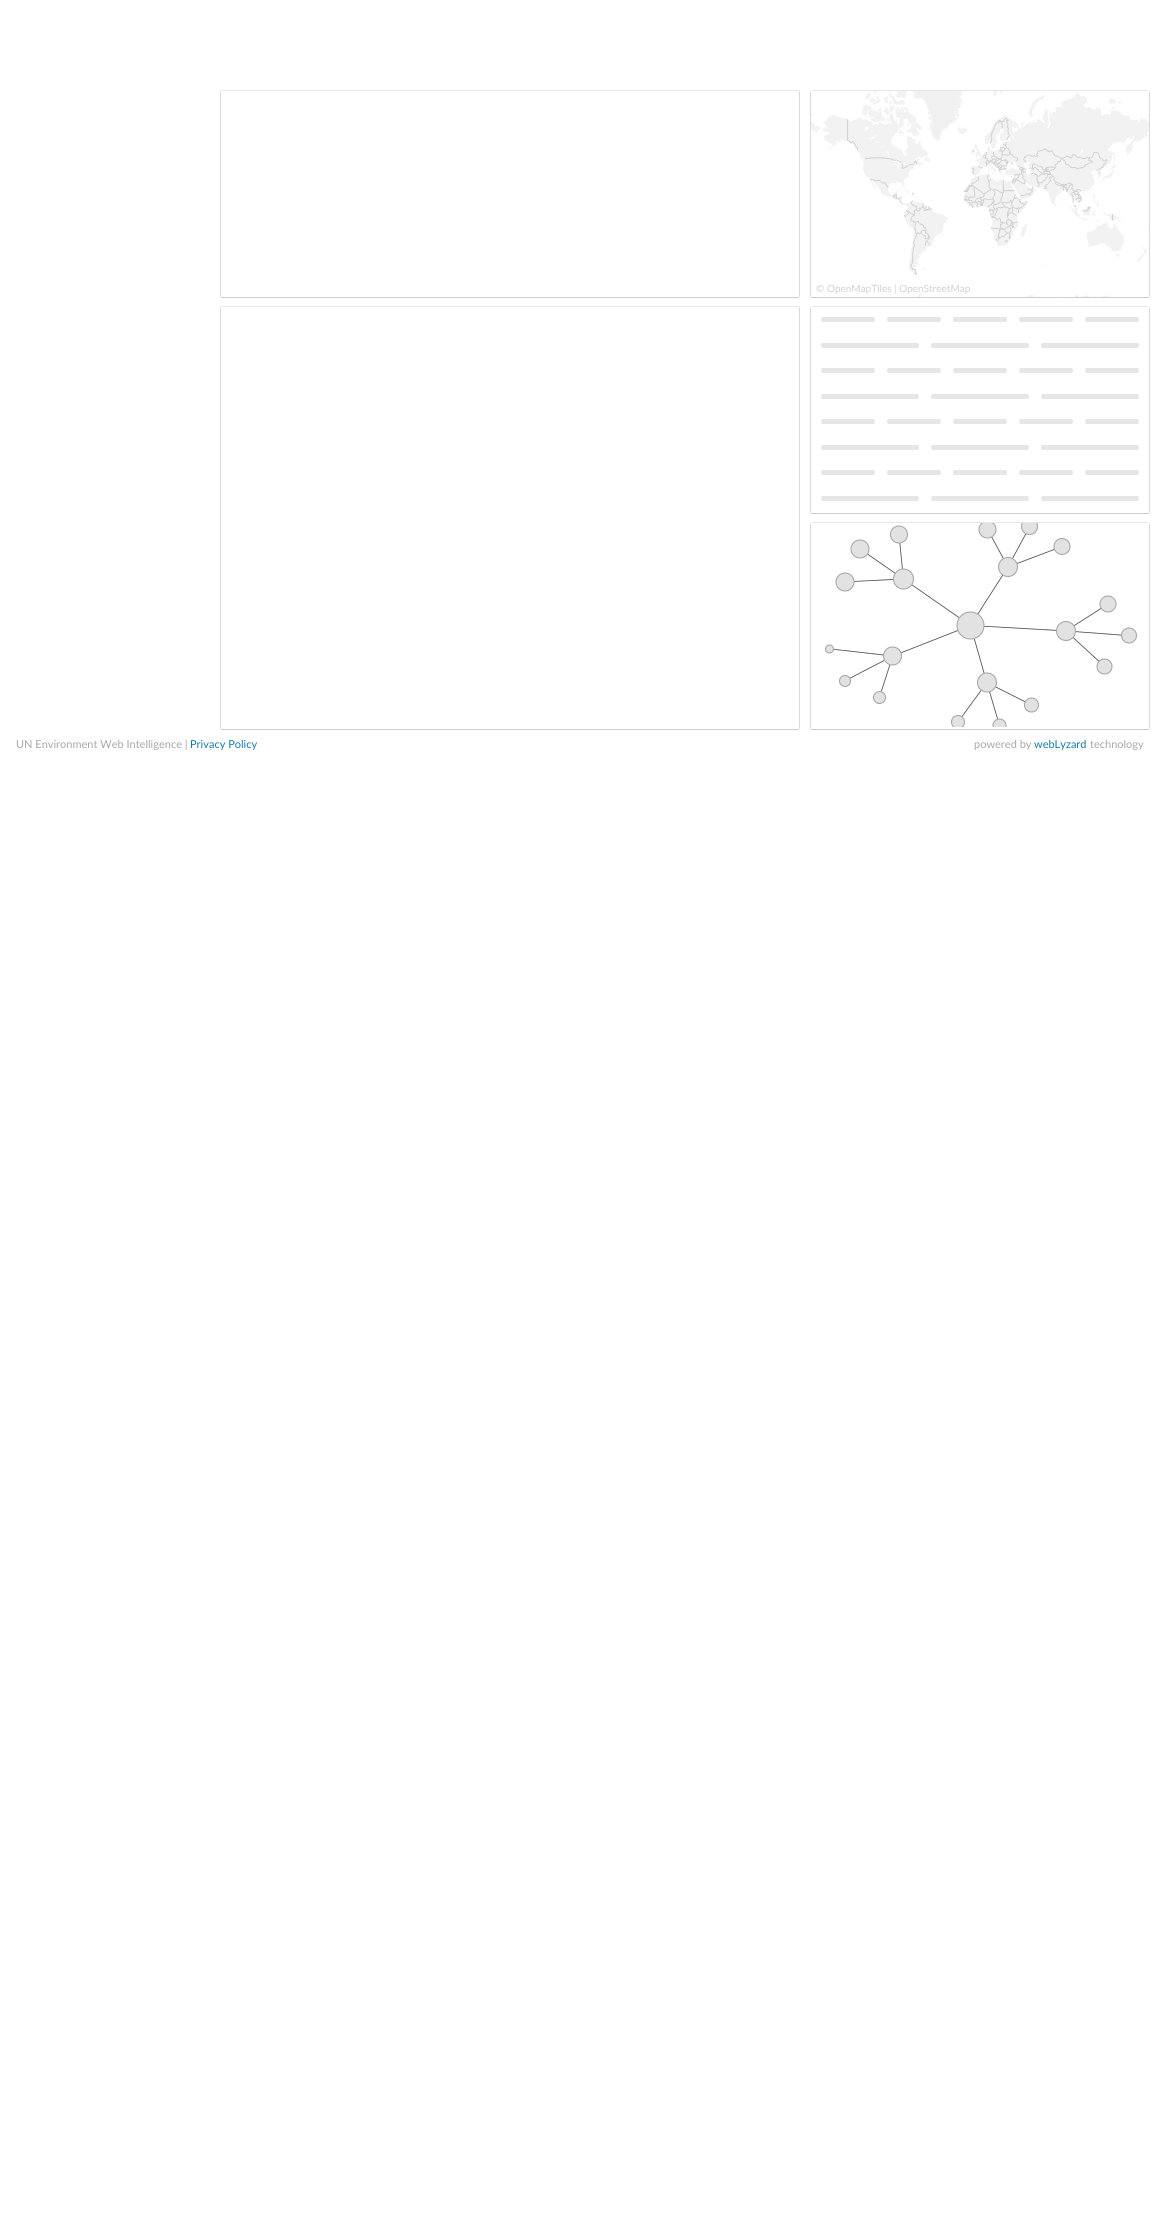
#include <cairo/cairo.h>
#include <math.h>
#include <stddef.h>

static cairo_t *cr;

static void use_color(int r, int g, int b) {
  cairo_set_source_rgb(cr, r / 255.0, g / 255.0, b / 255.0);
}

static void text(double x, double y, const char *s, const char *family, double size, int italic, int bold, int r, int g, int b) {
  cairo_select_font_face(cr, family, italic ? CAIRO_FONT_SLANT_ITALIC : CAIRO_FONT_SLANT_NORMAL,
    bold ? CAIRO_FONT_WEIGHT_BOLD : CAIRO_FONT_WEIGHT_NORMAL);
  cairo_set_font_size(cr, size);
  use_color(r, g, b);
  cairo_move_to(cr, x, y);
  cairo_show_text(cr, s);
}

static void box(double x, double y, double w, double h, int r, int g, int b) {
  use_color(r, g, b);
  cairo_rectangle(cr, x, y, w, h);
  cairo_fill(cr);
}

static void picture(const char *path, double x, double y, double w, double h) {
  cairo_surface_t *image = cairo_image_surface_create_from_png(path);
  cairo_save(cr);
  cairo_set_source_surface(cr, image, x, y);
  cairo_rectangle(cr, x, y, w, h);
  cairo_fill(cr);
  cairo_restore(cr);
  cairo_surface_destroy(image);
}

static void draw(void) {
  use_color(255, 255, 255);
  cairo_paint(cr);
  cairo_new_path(cr);
  cairo_move_to(cr, 221, 91);
  cairo_line_to(cr, 222, 90.5);
  cairo_line_to(cr, 798, 90.5);
  cairo_line_to(cr, 799, 91);
  use_color(230, 230, 230);
  cairo_set_line_width(cr, 1);
  cairo_stroke(cr);
  cairo_new_path(cr);
  cairo_move_to(cr, 799, 91);
  cairo_line_to(cr, 799.5, 92);
  cairo_line_to(cr, 799.5, 296);
  cairo_line_to(cr, 799, 297);
  use_color(218, 218, 218);
  cairo_stroke(cr);
  cairo_new_path(cr);
  cairo_move_to(cr, 799, 297);
  cairo_line_to(cr, 798, 297.5);
  cairo_line_to(cr, 222, 297.5);
  cairo_line_to(cr, 221, 297);
  use_color(204, 204, 204);
  cairo_stroke(cr);
  cairo_new_path(cr);
  cairo_move_to(cr, 221, 297);
  cairo_line_to(cr, 220.5, 296);
  cairo_line_to(cr, 220.5, 92);
  cairo_line_to(cr, 221, 91);
  use_color(218, 218, 218);
  cairo_stroke(cr);
  box(221, 91, 578, 206, 255, 255, 255);
  cairo_new_path(cr);
  cairo_move_to(cr, 811, 91);
  cairo_line_to(cr, 812, 90.5);
  cairo_line_to(cr, 1148, 90.5);
  cairo_line_to(cr, 1149, 91);
  use_color(230, 230, 230);
  cairo_stroke(cr);
  cairo_new_path(cr);
  cairo_move_to(cr, 1149, 91);
  cairo_line_to(cr, 1149.5, 92);
  cairo_line_to(cr, 1149.5, 296);
  cairo_line_to(cr, 1149, 297);
  use_color(218, 218, 218);
  cairo_stroke(cr);
  cairo_new_path(cr);
  cairo_move_to(cr, 1149, 297);
  cairo_line_to(cr, 1148, 297.5);
  cairo_line_to(cr, 812, 297.5);
  cairo_line_to(cr, 811, 297);
  use_color(204, 204, 204);
  cairo_stroke(cr);
  cairo_new_path(cr);
  cairo_move_to(cr, 811, 297);
  cairo_line_to(cr, 810.5, 296);
  cairo_line_to(cr, 810.5, 92);
  cairo_line_to(cr, 811, 91);
  use_color(218, 218, 218);
  cairo_stroke(cr);
  picture("img_01.png", 811, 91, 338, 206);
  cairo_new_path(cr);
  cairo_move_to(cr, 811, 307);
  cairo_line_to(cr, 812, 306.5);
  cairo_line_to(cr, 1148, 306.5);
  cairo_line_to(cr, 1149, 307);
  use_color(230, 230, 230);
  cairo_stroke(cr);
  cairo_new_path(cr);
  cairo_move_to(cr, 1149, 307);
  cairo_line_to(cr, 1149.5, 308);
  cairo_line_to(cr, 1149.5, 512);
  cairo_line_to(cr, 1149, 513);
  use_color(218, 218, 218);
  cairo_stroke(cr);
  cairo_new_path(cr);
  cairo_move_to(cr, 1149, 513);
  cairo_line_to(cr, 1148, 513.5);
  cairo_line_to(cr, 812, 513.5);
  cairo_line_to(cr, 811, 513);
  use_color(204, 204, 204);
  cairo_stroke(cr);
  cairo_new_path(cr);
  cairo_move_to(cr, 811, 513);
  cairo_line_to(cr, 810.5, 512);
  cairo_line_to(cr, 810.5, 308);
  cairo_line_to(cr, 811, 307);
  use_color(218, 218, 218);
  cairo_stroke(cr);
  box(811, 307, 338, 206, 255, 255, 255);
  picture("img_02.png", 821, 317, 318, 184);
  cairo_new_path(cr);
  cairo_move_to(cr, 811, 523);
  cairo_line_to(cr, 812, 522.5);
  cairo_line_to(cr, 1148, 522.5);
  cairo_line_to(cr, 1149, 523);
  use_color(230, 230, 230);
  cairo_stroke(cr);
  cairo_new_path(cr);
  cairo_move_to(cr, 1149, 523);
  cairo_line_to(cr, 1149.5, 524);
  cairo_line_to(cr, 1149.5, 728);
  cairo_line_to(cr, 1149, 729);
  use_color(218, 218, 218);
  cairo_stroke(cr);
  cairo_new_path(cr);
  cairo_move_to(cr, 1149, 729);
  cairo_line_to(cr, 1148, 729.5);
  cairo_line_to(cr, 812, 729.5);
  cairo_line_to(cr, 811, 729);
  use_color(204, 204, 204);
  cairo_stroke(cr);
  cairo_new_path(cr);
  cairo_move_to(cr, 811, 729);
  cairo_line_to(cr, 810.5, 728);
  cairo_line_to(cr, 810.5, 524);
  cairo_line_to(cr, 811, 523);
  use_color(218, 218, 218);
  cairo_stroke(cr);
  box(811, 523, 338, 206, 255, 255, 255);
  picture("img_03.png", 825, 523, 312, 204);
  cairo_new_path(cr);
  cairo_move_to(cr, 221, 307);
  cairo_line_to(cr, 222, 306.5);
  cairo_line_to(cr, 798, 306.5);
  cairo_line_to(cr, 799, 307);
  use_color(230, 230, 230);
  cairo_stroke(cr);
  cairo_new_path(cr);
  cairo_move_to(cr, 799, 307);
  cairo_line_to(cr, 799.5, 308);
  cairo_line_to(cr, 799.5, 728);
  cairo_line_to(cr, 799, 729);
  use_color(218, 218, 218);
  cairo_stroke(cr);
  cairo_new_path(cr);
  cairo_move_to(cr, 799, 729);
  cairo_line_to(cr, 798, 729.5);
  cairo_line_to(cr, 222, 729.5);
  cairo_line_to(cr, 221, 729);
  use_color(204, 204, 204);
  cairo_stroke(cr);
  cairo_new_path(cr);
  cairo_move_to(cr, 221, 729);
  cairo_line_to(cr, 220.5, 728);
  cairo_line_to(cr, 220.5, 308);
  cairo_line_to(cr, 221, 307);
  use_color(218, 218, 218);
  cairo_stroke(cr);
  box(221, 307, 578, 422, 255, 255, 255);
  text(16, 748, "UN Environment Web Intelligence |", "Lato", 11, 0, 0, 168, 168, 168);
  text(190, 748, "Privacy Policy", "Lato", 11, 0, 0, 20, 122, 166);
  text(974, 748, "powered by", "Lato", 11, 0, 0, 168, 168, 168);
  text(1034, 748, "webLyzard", "Lato", 11, 0, 0, 20, 122, 166);
  text(1090, 748, "technology", "Lato", 11, 0, 0, 168, 168, 168);
}

int main(void) {
  cairo_surface_t *surface = cairo_image_surface_create(CAIRO_FORMAT_RGB24, 1159, 2217);
  cr = cairo_create(surface);
  cairo_font_options_t *options = cairo_font_options_create();
  cairo_font_options_set_hint_metrics(options, CAIRO_HINT_METRICS_OFF);
  cairo_font_options_set_hint_style(options, CAIRO_HINT_STYLE_NONE);
  cairo_set_font_options(cr, options);
  cairo_set_miter_limit(cr, 4);
  draw();
  cairo_surface_write_to_png(surface, "out.png");
  cairo_font_options_destroy(options);
  cairo_destroy(cr);
  cairo_surface_destroy(surface);
  return 0;
}
